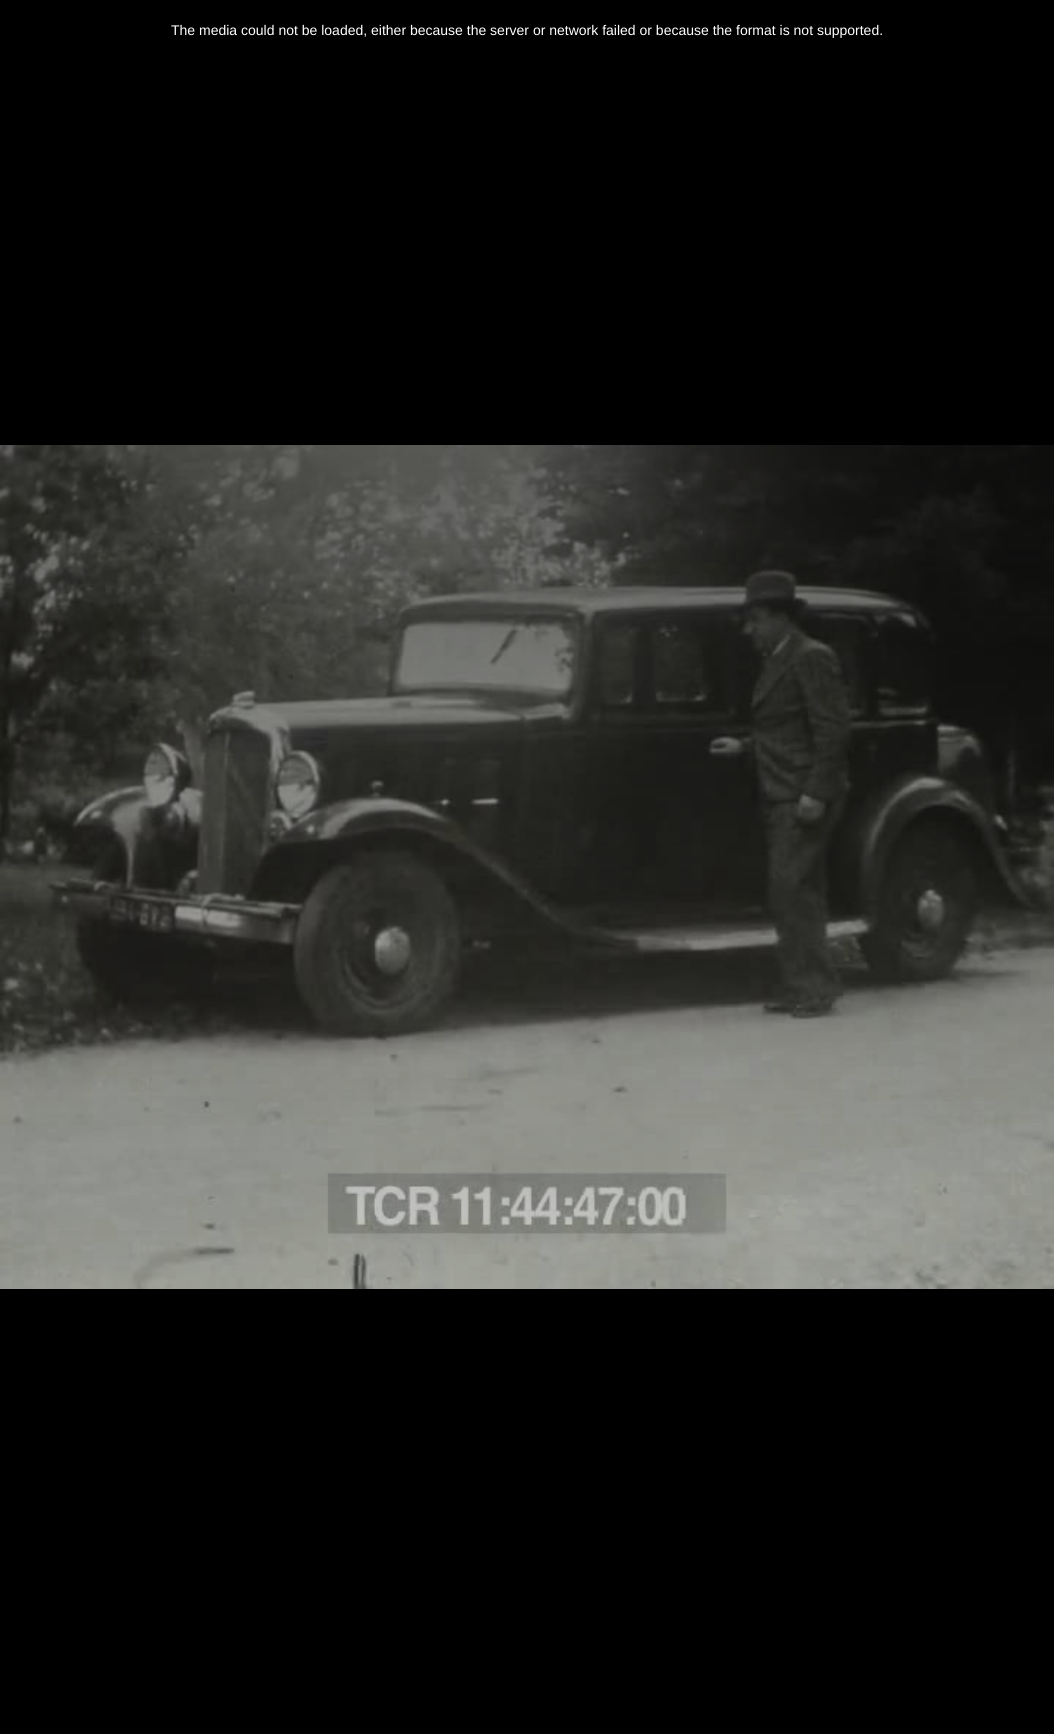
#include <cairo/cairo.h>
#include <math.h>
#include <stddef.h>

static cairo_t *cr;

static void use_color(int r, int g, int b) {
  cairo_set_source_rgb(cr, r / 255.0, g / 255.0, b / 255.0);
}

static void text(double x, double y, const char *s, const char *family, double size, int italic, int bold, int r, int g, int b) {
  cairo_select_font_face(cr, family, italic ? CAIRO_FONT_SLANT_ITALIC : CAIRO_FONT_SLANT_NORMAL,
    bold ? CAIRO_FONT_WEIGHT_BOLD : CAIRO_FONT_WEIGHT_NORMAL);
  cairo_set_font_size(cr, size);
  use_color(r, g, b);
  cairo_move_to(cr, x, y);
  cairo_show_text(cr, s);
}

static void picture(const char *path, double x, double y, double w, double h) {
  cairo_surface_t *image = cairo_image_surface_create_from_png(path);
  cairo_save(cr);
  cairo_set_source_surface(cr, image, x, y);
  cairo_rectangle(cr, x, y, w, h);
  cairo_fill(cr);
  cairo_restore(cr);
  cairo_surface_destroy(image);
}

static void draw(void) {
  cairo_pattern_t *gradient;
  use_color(0, 0, 0);
  cairo_paint(cr);
  picture("img_01.png", 0, 445, 1054, 844);
  gradient = cairo_pattern_create_linear(527, 0, 527, 1734);
  cairo_pattern_add_color_stop_rgba(gradient, 0, 0, 0, 0, 0.8);
  cairo_pattern_add_color_stop_rgba(gradient, 1, 0, 0, 0, 0);
  cairo_set_source(cr, gradient);
  cairo_pattern_destroy(gradient);
  cairo_rectangle(cr, 0, 445, 1054, 844);
  cairo_fill(cr);
  text(171, 35, "The media could not be loaded, either because the server or network failed or because the format is not supported.", "Liberation Sans", 14, 0, 0, 255, 255, 255);
}

int main(void) {
  cairo_surface_t *surface = cairo_image_surface_create(CAIRO_FORMAT_RGB24, 1054, 1734);
  cr = cairo_create(surface);
  cairo_font_options_t *options = cairo_font_options_create();
  cairo_font_options_set_hint_metrics(options, CAIRO_HINT_METRICS_OFF);
  cairo_font_options_set_hint_style(options, CAIRO_HINT_STYLE_NONE);
  cairo_set_font_options(cr, options);
  cairo_set_miter_limit(cr, 4);
  draw();
  cairo_surface_write_to_png(surface, "out.png");
  cairo_font_options_destroy(options);
  cairo_destroy(cr);
  cairo_surface_destroy(surface);
  return 0;
}
